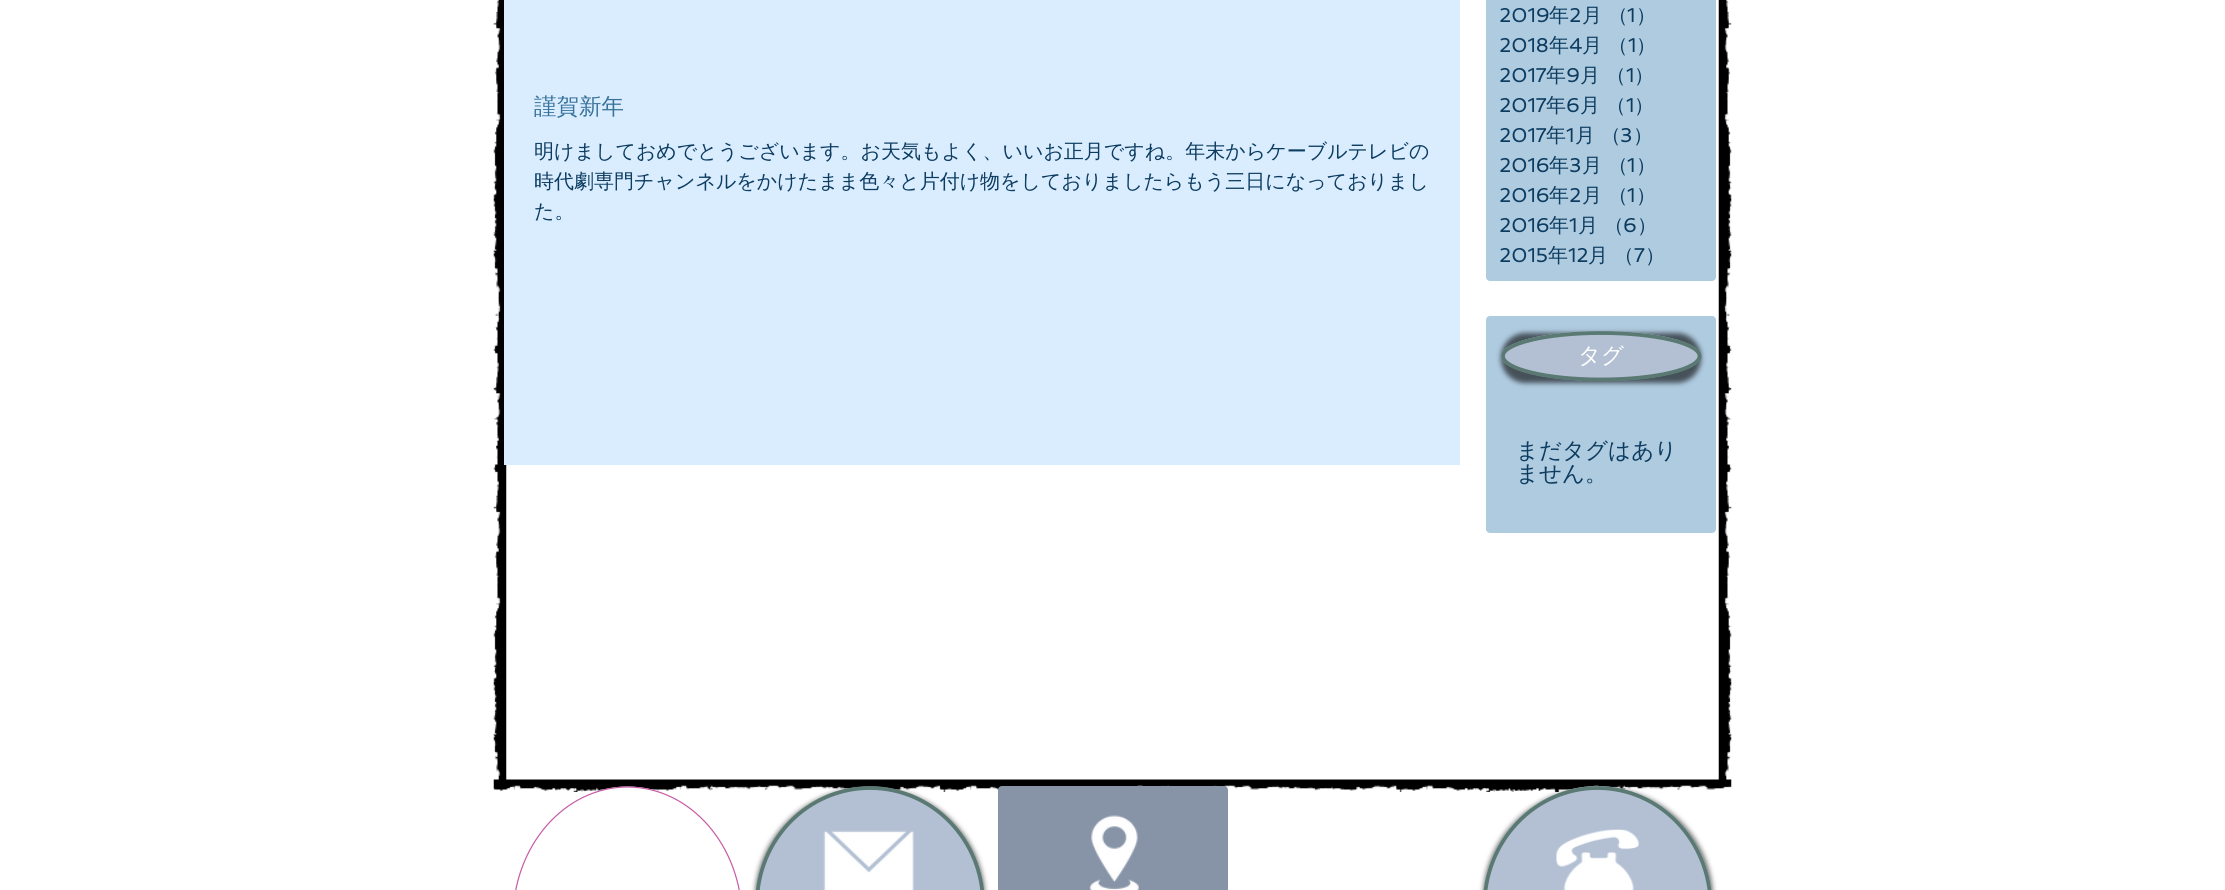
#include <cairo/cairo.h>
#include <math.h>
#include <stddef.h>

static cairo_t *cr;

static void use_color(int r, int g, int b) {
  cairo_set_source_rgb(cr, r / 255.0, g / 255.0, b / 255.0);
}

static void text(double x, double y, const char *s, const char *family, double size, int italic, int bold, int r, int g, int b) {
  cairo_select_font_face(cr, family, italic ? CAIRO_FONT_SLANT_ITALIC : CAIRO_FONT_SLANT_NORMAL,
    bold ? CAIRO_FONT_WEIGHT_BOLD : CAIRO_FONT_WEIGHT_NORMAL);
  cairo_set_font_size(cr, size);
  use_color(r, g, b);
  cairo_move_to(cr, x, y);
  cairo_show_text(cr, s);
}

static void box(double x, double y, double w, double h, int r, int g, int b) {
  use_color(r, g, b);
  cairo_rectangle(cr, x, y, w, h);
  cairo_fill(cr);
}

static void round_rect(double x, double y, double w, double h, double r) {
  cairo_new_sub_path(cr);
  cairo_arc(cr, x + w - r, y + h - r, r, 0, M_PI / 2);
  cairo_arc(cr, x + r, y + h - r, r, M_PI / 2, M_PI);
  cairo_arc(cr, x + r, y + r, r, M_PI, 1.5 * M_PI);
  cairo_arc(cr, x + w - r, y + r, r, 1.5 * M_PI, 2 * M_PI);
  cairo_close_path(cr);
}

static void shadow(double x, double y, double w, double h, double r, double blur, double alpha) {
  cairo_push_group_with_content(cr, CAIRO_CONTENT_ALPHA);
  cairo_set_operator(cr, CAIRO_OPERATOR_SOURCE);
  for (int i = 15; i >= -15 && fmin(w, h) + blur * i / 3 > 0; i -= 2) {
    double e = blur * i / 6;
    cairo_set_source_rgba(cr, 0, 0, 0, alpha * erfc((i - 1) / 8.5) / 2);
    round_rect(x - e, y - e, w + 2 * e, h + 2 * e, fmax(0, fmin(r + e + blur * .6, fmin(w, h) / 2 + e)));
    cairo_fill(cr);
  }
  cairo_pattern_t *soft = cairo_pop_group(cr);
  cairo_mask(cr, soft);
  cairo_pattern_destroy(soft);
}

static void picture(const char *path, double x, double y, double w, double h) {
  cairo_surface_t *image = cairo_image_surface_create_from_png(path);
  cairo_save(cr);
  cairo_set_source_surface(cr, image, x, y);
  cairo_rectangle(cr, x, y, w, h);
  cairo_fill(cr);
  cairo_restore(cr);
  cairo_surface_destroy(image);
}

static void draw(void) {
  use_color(255, 255, 255);
  cairo_paint(cr);
  picture("img_03.png", 493, 779, 1239, 13);
  picture("img_01.png", 493, 0, 14, 780);
  picture("img_02.png", 1718, 0, 14, 780);
  box(504, 0, 956, 465, 218, 237, 255);
  use_color(175, 203, 224);
  round_rect(1486, -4, 230, 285, 4);
  cairo_fill(cr);
  round_rect(1486, 316, 230, 217, 4);
  cairo_fill(cr);
  use_color(0, 0, 0);
  shadow(1501, 333, 200, 50, 25, 2.5, 0.6);
  use_color(179, 192, 211);
  cairo_new_path(cr);
  cairo_move_to(cr, 1601, 331);
  cairo_curve_to(cr, 1656, 331, 1701, 342, 1701, 356);
  cairo_curve_to(cr, 1701, 370, 1656, 381, 1601, 381);
  cairo_curve_to(cr, 1546, 381, 1501, 370, 1501, 356);
  cairo_curve_to(cr, 1501, 342, 1546, 331, 1601, 331);
  cairo_close_path(cr);
  cairo_fill(cr);
  cairo_new_path(cr);
  cairo_move_to(cr, 1601, 333);
  cairo_curve_to(cr, 1655.5, 333, 1699.5, 343.5, 1699.5, 356);
  cairo_curve_to(cr, 1699.5, 369, 1655.5, 379.5, 1601, 379.5);
  cairo_curve_to(cr, 1547, 379.5, 1503, 369, 1503, 356);
  cairo_curve_to(cr, 1503, 343.5, 1547, 333, 1601, 333);
  cairo_close_path(cr);
  use_color(90, 121, 114);
  cairo_set_line_width(cr, 3.8);
  cairo_stroke(cr);
  use_color(255, 255, 255);
  cairo_new_path(cr);
  cairo_move_to(cr, 627.5, 786.5);
  cairo_curve_to(cr, 691, 786.5, 742.5, 846, 742.5, 919);
  cairo_curve_to(cr, 742.5, 992, 691, 1051.5, 627.5, 1051.5);
  cairo_curve_to(cr, 564, 1051.5, 512.5, 992, 512.5, 919);
  cairo_curve_to(cr, 512.5, 846, 564, 786.5, 627.5, 786.5);
  cairo_close_path(cr);
  cairo_fill(cr);
  cairo_new_path(cr);
  cairo_move_to(cr, 627.5, 787);
  cairo_curve_to(cr, 690.5, 787, 742, 846, 742, 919);
  cairo_curve_to(cr, 742, 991.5, 690.5, 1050.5, 627.5, 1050.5);
  cairo_curve_to(cr, 564.5, 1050.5, 513, 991.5, 513, 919);
  cairo_curve_to(cr, 513, 846, 564.5, 787, 627.5, 787);
  cairo_close_path(cr);
  use_color(198, 90, 165);
  cairo_set_line_width(cr, 1.2);
  cairo_stroke(cr);
  use_color(0, 0, 0);
  shadow(755, 788, 230, 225, 115, 2.5, 0.6);
  use_color(179, 192, 211);
  cairo_new_path(cr);
  cairo_move_to(cr, 870, 786.5);
  cairo_curve_to(cr, 933.5, 786.5, 985, 839, 985, 904);
  cairo_curve_to(cr, 985, 969, 933.5, 1021.5, 870, 1021.5);
  cairo_curve_to(cr, 806.5, 1021.5, 755, 969, 755, 904);
  cairo_curve_to(cr, 755, 839, 806.5, 786.5, 870, 786.5);
  cairo_close_path(cr);
  cairo_fill(cr);
  cairo_new_path(cr);
  cairo_move_to(cr, 870, 788);
  cairo_curve_to(cr, 932.5, 788, 983, 840, 983, 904);
  cairo_curve_to(cr, 983, 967.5, 932.5, 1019.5, 870, 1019.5);
  cairo_curve_to(cr, 807.5, 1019.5, 757, 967.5, 757, 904);
  cairo_curve_to(cr, 757, 840, 807.5, 788, 870, 788);
  cairo_close_path(cr);
  use_color(90, 121, 114);
  cairo_set_line_width(cr, 3.8);
  cairo_stroke(cr);
  picture("img_04.png", 823, 830, 91, 60);
  use_color(135, 148, 167);
  round_rect(998, 786, 230, 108, 4);
  cairo_fill(cr);
  picture("img_05.png", 1089, 815, 50, 75);
  use_color(0, 0, 0);
  shadow(1483, 788, 230, 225, 115, 2.5, 0.6);
  use_color(179, 192, 211);
  cairo_new_path(cr);
  cairo_move_to(cr, 1597.5, 786);
  cairo_curve_to(cr, 1661, 786, 1712.5, 839.5, 1712.5, 906);
  cairo_curve_to(cr, 1712.5, 972.5, 1661, 1026, 1597.5, 1026);
  cairo_curve_to(cr, 1534, 1026, 1482.5, 972.5, 1482.5, 906);
  cairo_curve_to(cr, 1482.5, 839.5, 1534, 786, 1597.5, 786);
  cairo_close_path(cr);
  cairo_fill(cr);
  cairo_new_path(cr);
  cairo_move_to(cr, 1597.5, 788);
  cairo_curve_to(cr, 1660, 788, 1710.5, 841, 1710.5, 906);
  cairo_curve_to(cr, 1710.5, 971.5, 1660, 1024.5, 1597.5, 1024.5);
  cairo_curve_to(cr, 1535, 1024.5, 1484.5, 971.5, 1484.5, 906);
  cairo_curve_to(cr, 1484.5, 841, 1535, 788, 1597.5, 788);
  cairo_close_path(cr);
  use_color(90, 121, 114);
  cairo_stroke(cr);
  picture("img_06.png", 1556, 829, 83, 61);
  text(534, 114, "謹賀新年", "WenQuanYi Zen Hei Medium", 22.5, 0, 0, 57, 114, 155);
  text(534, 158, "明けましておめでとうございます。お天気もよく、いいお正月ですね。年末からケーブルテレビの", "WenQuanYi Zen Hei Medium", 20, 0, 0, 12, 60, 96);
  text(534, 188, "時代劇専門チャンネルをかけたまま色々と片付け物をしておりましたらもう三日になっておりまし", "WenQuanYi Zen Hei Medium", 20, 0, 0, 12, 60, 96);
  text(534, 218, "た。", "WenQuanYi Zen Hei Medium", 20, 0, 0, 12, 60, 96);
  text(1499, 22, "2019", "Spinnaker", 20, 0, 0, 12, 60, 96);
  text(1549, 22, "年", "WenQuanYi Zen Hei Medium", 20, 0, 0, 12, 60, 96);
  text(1569, 22, "2", "Spinnaker", 20, 0, 0, 12, 60, 96);
  text(1582, 22, "月 （", "WenQuanYi Zen Hei Medium", 20, 0, 0, 12, 60, 96);
  text(1627, 22, "1", "Spinnaker", 20, 0, 0, 12, 60, 96);
  text(1636, 22, "）", "WenQuanYi Zen Hei Medium", 20, 0, 0, 12, 60, 96);
  text(1499, 52, "2018", "Spinnaker", 20, 0, 0, 12, 60, 96);
  text(1549, 52, "年", "WenQuanYi Zen Hei Medium", 20, 0, 0, 12, 60, 96);
  text(1569, 52, "4", "Spinnaker", 20, 0, 0, 12, 60, 96);
  text(1582, 52, "月 （", "WenQuanYi Zen Hei Medium", 20, 0, 0, 12, 60, 96);
  text(1628, 52, "1", "Spinnaker", 20, 0, 0, 12, 60, 96);
  text(1636, 52, "）", "WenQuanYi Zen Hei Medium", 20, 0, 0, 12, 60, 96);
  text(1499, 82, "2017", "Spinnaker", 20, 0, 0, 12, 60, 96);
  text(1546, 82, "年", "WenQuanYi Zen Hei Medium", 20, 0, 0, 12, 60, 96);
  text(1566, 82, "9", "Spinnaker", 20, 0, 0, 12, 60, 96);
  text(1580, 82, "月 （", "WenQuanYi Zen Hei Medium", 20, 0, 0, 12, 60, 96);
  text(1626, 82, "1", "Spinnaker", 20, 0, 0, 12, 60, 96);
  text(1634, 82, "）", "WenQuanYi Zen Hei Medium", 20, 0, 0, 12, 60, 96);
  text(1499, 112, "2017", "Spinnaker", 20, 0, 0, 12, 60, 96);
  text(1546, 112, "年", "WenQuanYi Zen Hei Medium", 20, 0, 0, 12, 60, 96);
  text(1566, 112, "6", "Spinnaker", 20, 0, 0, 12, 60, 96);
  text(1580, 112, "月 （", "WenQuanYi Zen Hei Medium", 20, 0, 0, 12, 60, 96);
  text(1626, 112, "1", "Spinnaker", 20, 0, 0, 12, 60, 96);
  text(1634, 112, "）", "WenQuanYi Zen Hei Medium", 20, 0, 0, 12, 60, 96);
  text(1499, 142, "2017", "Spinnaker", 20, 0, 0, 12, 60, 96);
  text(1546, 142, "年", "WenQuanYi Zen Hei Medium", 20, 0, 0, 12, 60, 96);
  text(1566, 142, "1", "Spinnaker", 20, 0, 0, 12, 60, 96);
  text(1575, 142, "月 （", "WenQuanYi Zen Hei Medium", 20, 0, 0, 12, 60, 96);
  text(1620, 142, "3", "Spinnaker", 20, 0, 0, 12, 60, 96);
  text(1633, 142, "）", "WenQuanYi Zen Hei Medium", 20, 0, 0, 12, 60, 96);
  text(1499, 172, "2016", "Spinnaker", 20, 0, 0, 12, 60, 96);
  text(1549, 172, "年", "WenQuanYi Zen Hei Medium", 20, 0, 0, 12, 60, 96);
  text(1569, 172, "3", "Spinnaker", 20, 0, 0, 12, 60, 96);
  text(1582, 172, "月 （", "WenQuanYi Zen Hei Medium", 20, 0, 0, 12, 60, 96);
  text(1627, 172, "1", "Spinnaker", 20, 0, 0, 12, 60, 96);
  text(1636, 172, "）", "WenQuanYi Zen Hei Medium", 20, 0, 0, 12, 60, 96);
  text(1499, 202, "2016", "Spinnaker", 20, 0, 0, 12, 60, 96);
  text(1549, 202, "年", "WenQuanYi Zen Hei Medium", 20, 0, 0, 12, 60, 96);
  text(1569, 202, "2", "Spinnaker", 20, 0, 0, 12, 60, 96);
  text(1582, 202, "月 （", "WenQuanYi Zen Hei Medium", 20, 0, 0, 12, 60, 96);
  text(1627, 202, "1", "Spinnaker", 20, 0, 0, 12, 60, 96);
  text(1636, 202, "）", "WenQuanYi Zen Hei Medium", 20, 0, 0, 12, 60, 96);
  text(1499, 232, "2016", "Spinnaker", 20, 0, 0, 12, 60, 96);
  text(1549, 232, "年", "WenQuanYi Zen Hei Medium", 20, 0, 0, 12, 60, 96);
  text(1569, 232, "1", "Spinnaker", 20, 0, 0, 12, 60, 96);
  text(1578, 232, "月 （", "WenQuanYi Zen Hei Medium", 20, 0, 0, 12, 60, 96);
  text(1623, 232, "6", "Spinnaker", 20, 0, 0, 12, 60, 96);
  text(1637, 232, "）", "WenQuanYi Zen Hei Medium", 20, 0, 0, 12, 60, 96);
  text(1499, 262, "2015", "Spinnaker", 20, 0, 0, 12, 60, 96);
  text(1548, 262, "年", "WenQuanYi Zen Hei Medium", 20, 0, 0, 12, 60, 96);
  text(1568, 262, "12", "Spinnaker", 20, 0, 0, 12, 60, 96);
  text(1588, 262, "月 （", "WenQuanYi Zen Hei Medium", 20, 0, 0, 12, 60, 96);
  text(1634, 262, "7", "Spinnaker", 20, 0, 0, 12, 60, 96);
  text(1645, 262, "）", "WenQuanYi Zen Hei Medium", 20, 0, 0, 12, 60, 96);
  text(1578, 363, "タグ", "WenQuanYi Zen Hei Medium", 22.5, 0, 0, 255, 255, 255);
  text(1516, 458, "まだタグはあり", "WenQuanYi Zen Hei Medium", 22.5, 0, 0, 12, 60, 96);
  text(1516, 481, "ません。", "WenQuanYi Zen Hei Medium", 22.5, 0, 0, 12, 60, 96);
}

int main(void) {
  cairo_surface_t *surface = cairo_image_surface_create(CAIRO_FORMAT_RGB24, 2225, 890);
  cr = cairo_create(surface);
  cairo_font_options_t *options = cairo_font_options_create();
  cairo_font_options_set_hint_metrics(options, CAIRO_HINT_METRICS_OFF);
  cairo_font_options_set_hint_style(options, CAIRO_HINT_STYLE_NONE);
  cairo_set_font_options(cr, options);
  cairo_set_miter_limit(cr, 4);
  draw();
  cairo_surface_write_to_png(surface, "out.png");
  cairo_font_options_destroy(options);
  cairo_destroy(cr);
  cairo_surface_destroy(surface);
  return 0;
}
